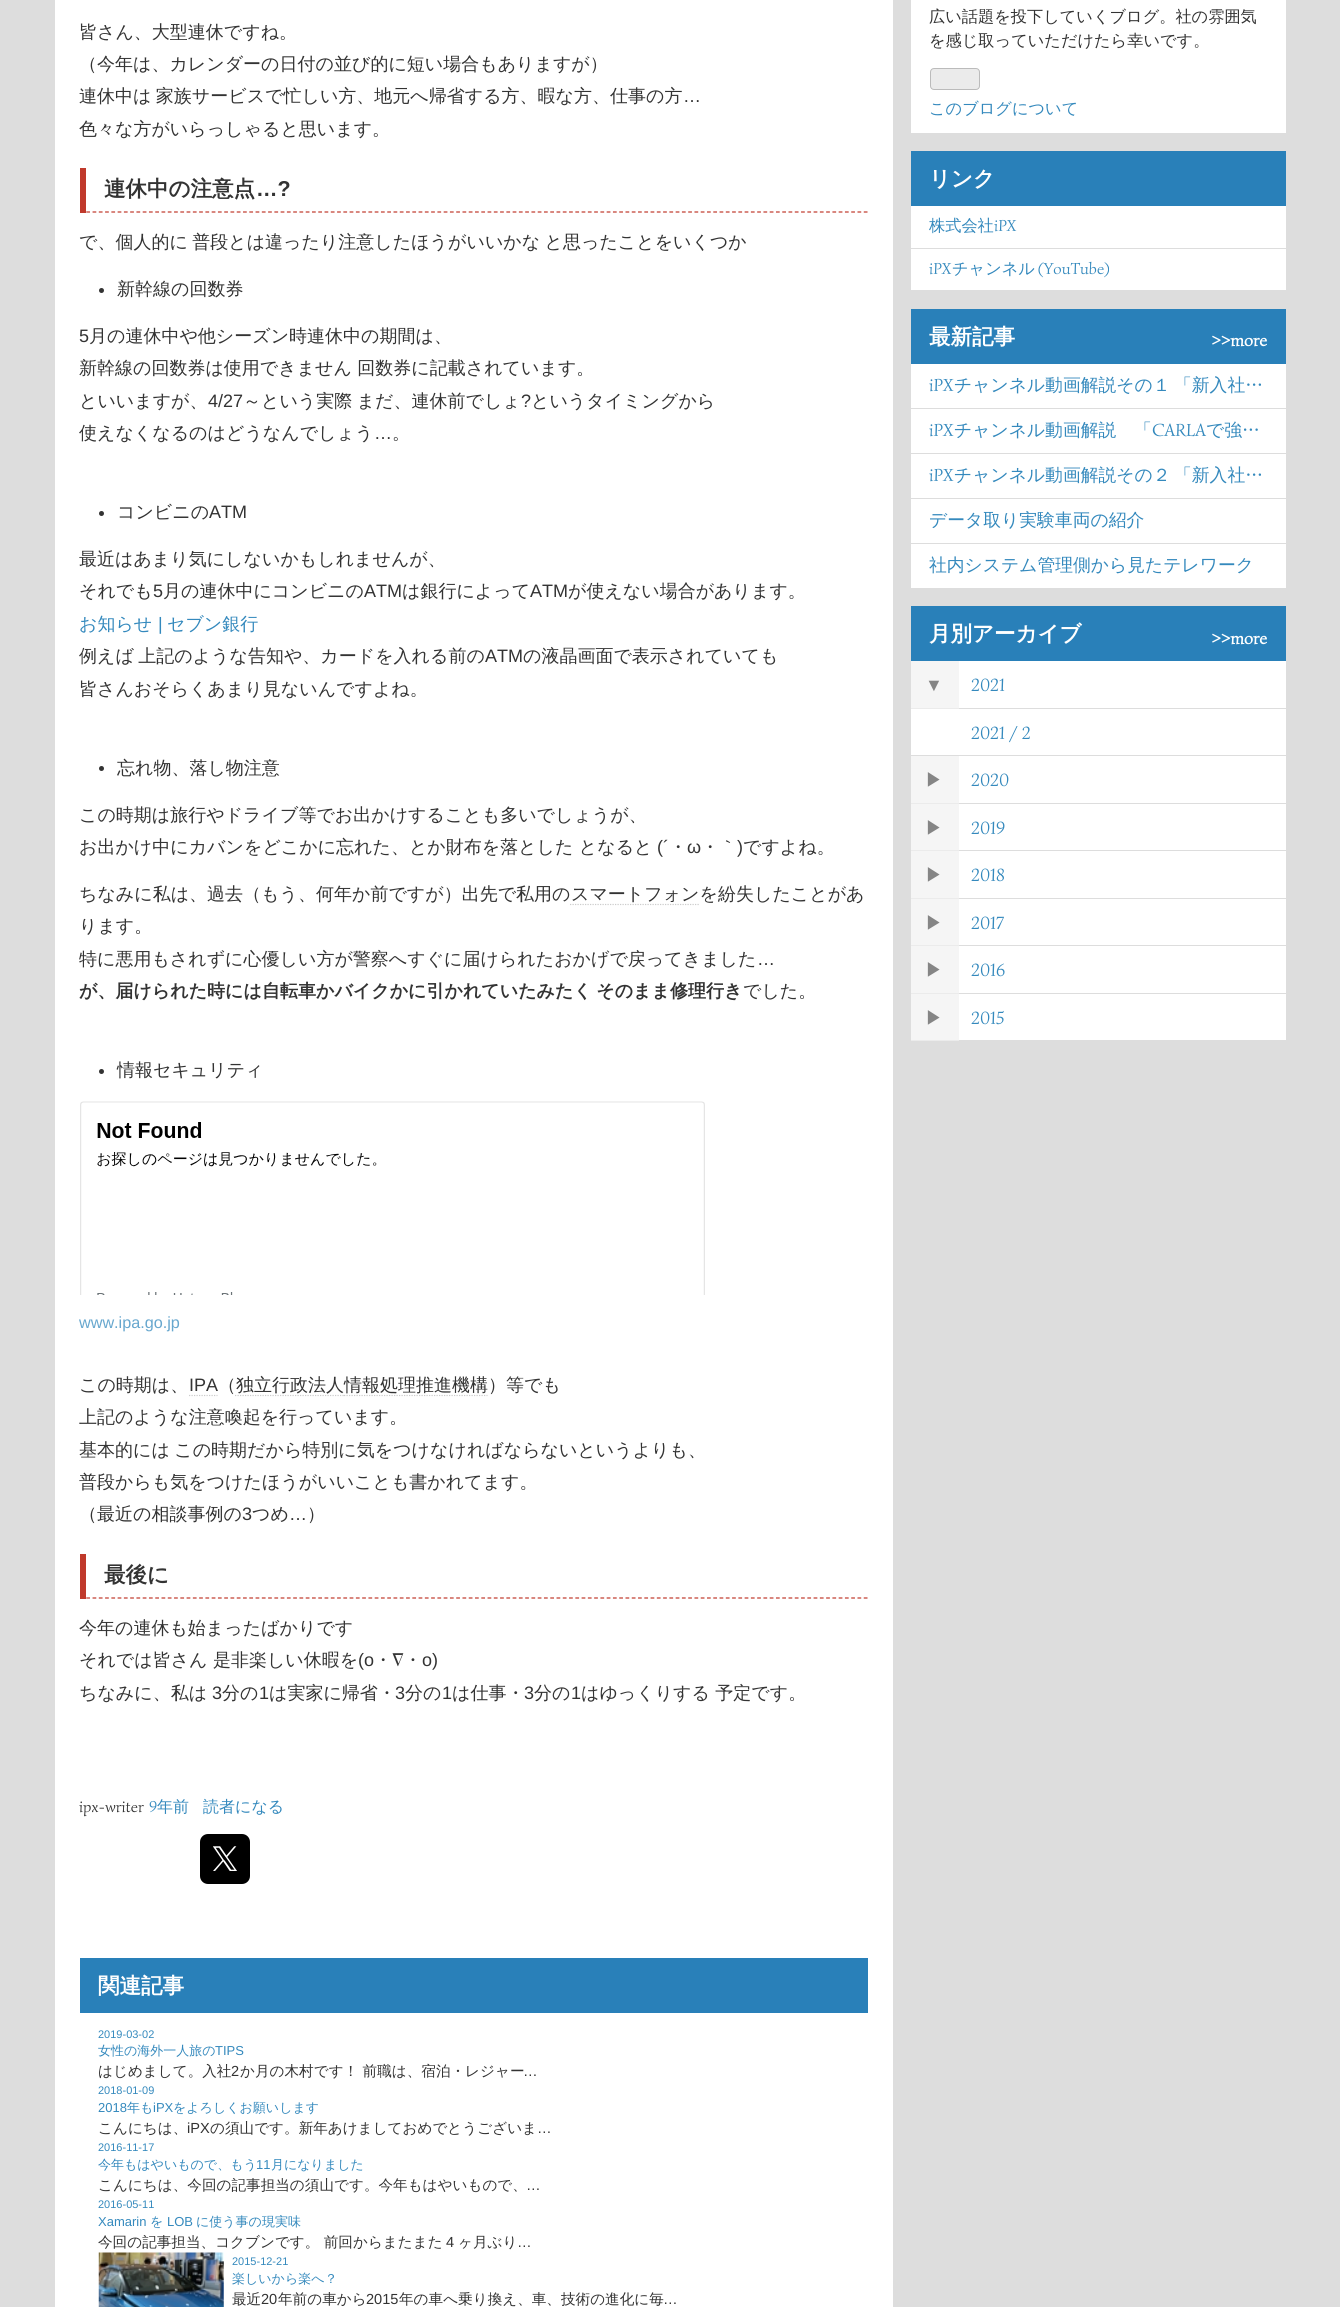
#include <cairo/cairo.h>
#include <math.h>
#include <stddef.h>

static cairo_t *cr;

static void use_color(int r, int g, int b) {
  cairo_set_source_rgb(cr, r / 255.0, g / 255.0, b / 255.0);
}

static void text(double x, double y, const char *s, const char *family, double size, int italic, int bold, int r, int g, int b) {
  cairo_select_font_face(cr, family, italic ? CAIRO_FONT_SLANT_ITALIC : CAIRO_FONT_SLANT_NORMAL,
    bold ? CAIRO_FONT_WEIGHT_BOLD : CAIRO_FONT_WEIGHT_NORMAL);
  cairo_set_font_size(cr, size);
  use_color(r, g, b);
  cairo_move_to(cr, x, y);
  cairo_show_text(cr, s);
}

static void spaced_text(double x, double y, const char *s, double letter, double word) {
  cairo_move_to(cr, x, y);
  while (*s) {
    char ch[5] = {0};
    int n = 0;
    do ch[n++] = *s++; while ((*s & 0xC0) == 0x80);
    cairo_show_text(cr, ch);
    cairo_rel_move_to(cr, letter + word * (*ch == ' '), 0);
  }
}

static void box(double x, double y, double w, double h, int r, int g, int b) {
  use_color(r, g, b);
  cairo_rectangle(cr, x, y, w, h);
  cairo_fill(cr);
}

static void round_rect(double x, double y, double w, double h, double r) {
  cairo_new_sub_path(cr);
  cairo_arc(cr, x + w - r, y + h - r, r, 0, M_PI / 2);
  cairo_arc(cr, x + r, y + h - r, r, M_PI / 2, M_PI);
  cairo_arc(cr, x + r, y + r, r, M_PI, 1.5 * M_PI);
  cairo_arc(cr, x + w - r, y + r, r, 1.5 * M_PI, 2 * M_PI);
  cairo_close_path(cr);
}

static void picture(const char *path, double x, double y, double w, double h) {
  cairo_surface_t *image = cairo_image_surface_create_from_png(path);
  cairo_save(cr);
  cairo_set_source_surface(cr, image, x, y);
  cairo_rectangle(cr, x, y, w, h);
  cairo_fill(cr);
  cairo_restore(cr);
  cairo_surface_destroy(image);
}

static void draw(void) {
  use_color(221, 221, 221);
  cairo_paint(cr);
  box(55, 0, 838, 2307, 255, 255, 255);
  cairo_new_path(cr);
  cairo_move_to(cr, 80, 212);
  cairo_line_to(cr, 867.5, 212);
  use_color(192, 57, 43);
  cairo_set_line_width(cr, 1.2);
  cairo_set_dash(cr, (double[]){3.75, 2.52}, 2, 0);
  cairo_stroke(cr);
  box(80, 168, 6, 45, 192, 57, 43);
  use_color(51, 51, 51);
  cairo_arc(cr, 101.5, 290.5, 2.5, 0, 2 * M_PI);
  cairo_fill(cr);
  cairo_arc(cr, 101.5, 513.5, 2.5, 0, 2 * M_PI);
  cairo_fill(cr);
  cairo_arc(cr, 101.5, 768.5, 2.5, 0, 2 * M_PI);
  cairo_fill(cr);
  cairo_new_path(cr);
  cairo_move_to(cr, 570, 904.5);
  cairo_line_to(cr, 699, 904.5);
  use_color(204, 204, 204);
  cairo_set_dash(cr, (double[]){1.25, 1.25}, 2, 0);
  cairo_stroke(cr);
  use_color(51, 51, 51);
  cairo_arc(cr, 101.5, 1071.5, 2.5, 0, 2 * M_PI);
  cairo_fill(cr);
  picture("img_01.png", 80, 1101, 625, 194);
  cairo_new_path(cr);
  cairo_move_to(cr, 189, 1395.5);
  cairo_line_to(cr, 217.5, 1395.5);
  use_color(204, 204, 204);
  cairo_stroke(cr);
  cairo_new_path(cr);
  cairo_move_to(cr, 80, 1598);
  cairo_line_to(cr, 867.5, 1598);
  use_color(192, 57, 43);
  cairo_set_dash(cr, (double[]){3.75, 2.52}, 2, 0);
  cairo_stroke(cr);
  box(80, 1554, 6, 45, 192, 57, 43);
  use_color(0, 0, 0);
  round_rect(200, 1834, 50, 50, 8);
  cairo_fill(cr);
  picture("img_02.png", 213, 1846, 24, 25);
  box(80, 1958, 788, 55, 41, 128, 185);
  picture("img_03.png", 98, 2252, 126, 55);
  box(911, 0, 375, 133, 255, 255, 255);
  use_color(235, 235, 235);
  round_rect(930.5, 68.5, 49, 21, 3.5);
  cairo_fill_preserve(cr);
  use_color(187, 187, 187);
  cairo_set_line_width(cr, 1);
  cairo_set_dash(cr, NULL, 0, 0);
  cairo_stroke(cr);
  box(911, 206, 375, 84, 255, 255, 255);
  box(911, 151, 375, 55, 41, 128, 185);
  box(911, 248, 375, 1, 221, 221, 221);
  box(911, 364, 375, 224, 255, 255, 255);
  box(911, 309, 375, 55, 41, 128, 185);
  box(911, 408, 375, 1, 221, 221, 221);
  box(911, 453, 375, 1, 221, 221, 221);
  box(911, 498, 375, 1, 221, 221, 221);
  box(911, 543, 375, 1, 221, 221, 221);
  box(911, 661, 375, 379, 255, 255, 255);
  box(911, 606, 375, 55, 41, 128, 185);
  box(911, 661, 48, 47, 245, 245, 245);
  box(911, 708, 48, 1, 235, 235, 235);
  box(959, 708, 327, 1, 221, 221, 221);
  box(911, 755, 375, 1, 221, 221, 221);
  box(911, 756, 48, 47, 245, 245, 245);
  box(911, 803, 48, 1, 235, 235, 235);
  box(959, 803, 327, 1, 221, 221, 221);
  box(911, 804, 48, 46, 245, 245, 245);
  box(911, 850, 48, 1, 235, 235, 235);
  box(959, 850, 327, 1, 221, 221, 221);
  box(911, 851, 48, 47, 245, 245, 245);
  box(911, 898, 48, 1, 235, 235, 235);
  box(959, 898, 327, 1, 221, 221, 221);
  box(911, 899, 48, 46, 245, 245, 245);
  box(911, 945, 48, 1, 235, 235, 235);
  box(959, 945, 327, 1, 221, 221, 221);
  box(911, 946, 48, 47, 245, 245, 245);
  box(911, 993, 48, 1, 235, 235, 235);
  box(959, 993, 327, 1, 221, 221, 221);
  box(911, 994, 48, 46, 245, 245, 245);
  box(911, 1040, 48, 1, 235, 235, 235);
  text(79, 38, "皆さん、大型連休ですね。", "WenQuanYi Zen Hei Medium", 18, 0, 0, 51, 51, 51);
  text(79, 70, "（今年は、カレンダーの日付の並び的に短い場合もありますが）", "WenQuanYi Zen Hei Medium", 18, 0, 0, 51, 51, 51);
  spaced_text(79, 102, "連休中は 家族サービスで忙しい方、地元へ帰省する方、暇な方、仕事の方", 0, -1);
  text(683, 102, "…", "Liberation Sans", 18, 0, 0, 51, 51, 51);
  text(79, 135, "色々な方がいらっしゃると思います。", "WenQuanYi Zen Hei Medium", 18, 0, 0, 51, 51, 51);
  text(104, 196, "連休中の注意点", "WenQuanYi Zen Hei", 21.5, 0, 1, 51, 51, 51);
  text(256, 196, "…?", "Liberation Sans", 21.5, 0, 1, 51, 51, 51);
  cairo_select_font_face(cr, "WenQuanYi Zen Hei Medium", CAIRO_FONT_SLANT_NORMAL, CAIRO_FONT_WEIGHT_NORMAL);
  cairo_set_font_size(cr, 18);
  spaced_text(79, 248, "で、個人的に 普段とは違ったり注意したほうがいいかな と思ったことをいくつか", 0, -1);
  text(117, 295, "新幹線の回数券", "WenQuanYi Zen Hei Medium", 18, 0, 0, 51, 51, 51);
  text(79, 342, "5", "Liberation Sans", 18, 0, 0, 51, 51, 51);
  text(89, 342, "月の連休中や他シーズン時連休中の期間は、", "WenQuanYi Zen Hei Medium", 18, 0, 0, 51, 51, 51);
  text(79, 374, "新幹線の回数券は使用できません 回数券に記載されています。", "WenQuanYi Zen Hei Medium", 18, 0, 0, 51, 51, 51);
  text(79, 407, "といいますが、", "WenQuanYi Zen Hei Medium", 18, 0, 0, 51, 51, 51);
  text(208, 407, "4/27", "Liberation Sans", 18, 0, 0, 51, 51, 51);
  cairo_select_font_face(cr, "WenQuanYi Zen Hei Medium", CAIRO_FONT_SLANT_NORMAL, CAIRO_FONT_WEIGHT_NORMAL);
  spaced_text(243, 407, "～という実際 まだ、連休前でしょ", 0, -1);
  text(521, 407, "?", "Liberation Sans", 18, 0, 0, 51, 51, 51);
  text(531, 407, "というタイミングから", "WenQuanYi Zen Hei Medium", 18, 0, 0, 51, 51, 51);
  text(79, 439, "使えなくなるのはどうなんでしょう", "WenQuanYi Zen Hei Medium", 18, 0, 0, 51, 51, 51);
  text(374, 439, "…", "Liberation Sans", 18, 0, 0, 51, 51, 51);
  text(392, 439, "。", "WenQuanYi Zen Hei Medium", 18, 0, 0, 51, 51, 51);
  text(117, 518, "コンビニの", "WenQuanYi Zen Hei Medium", 18, 0, 0, 51, 51, 51);
  text(209, 518, "ATM", "Liberation Sans", 18, 0, 0, 51, 51, 51);
  text(79, 565, "最近はあまり気にしないかもしれませんが、", "WenQuanYi Zen Hei Medium", 18, 0, 0, 51, 51, 51);
  text(79, 597, "それでも", "WenQuanYi Zen Hei Medium", 18, 0, 0, 51, 51, 51);
  text(153, 597, "5", "Liberation Sans", 18, 0, 0, 51, 51, 51);
  text(163, 597, "月の連休中にコンビニの", "WenQuanYi Zen Hei Medium", 18, 0, 0, 51, 51, 51);
  text(364, 597, "ATM", "Liberation Sans", 18, 0, 0, 51, 51, 51);
  text(402, 597, "は銀行によって", "WenQuanYi Zen Hei Medium", 18, 0, 0, 51, 51, 51);
  text(530, 597, "ATM", "Liberation Sans", 18, 0, 0, 51, 51, 51);
  text(568, 597, "が使えない場合があります。", "WenQuanYi Zen Hei Medium", 18, 0, 0, 51, 51, 51);
  text(79, 630, "お知らせ", "WenQuanYi Zen Hei Medium", 18, 0, 0, 52, 137, 189);
  text(158, 630, "|", "Liberation Sans", 18, 0, 0, 52, 137, 189);
  text(167, 630, "セブン銀行", "WenQuanYi Zen Hei Medium", 18, 0, 0, 52, 137, 189);
  use_color(51, 51, 51);
  spaced_text(79, 662, "例えば 上記のような告知や、カードを入れる前の", 0, -1);
  text(485, 662, "ATM", "Liberation Sans", 18, 0, 0, 51, 51, 51);
  text(523, 662, "の液晶画面で表示されていても", "WenQuanYi Zen Hei Medium", 18, 0, 0, 51, 51, 51);
  text(79, 695, "皆さんおそらくあまり見ないんですよね。", "WenQuanYi Zen Hei Medium", 18, 0, 0, 51, 51, 51);
  text(117, 774, "忘れ物、落し物注意", "WenQuanYi Zen Hei Medium", 18, 0, 0, 51, 51, 51);
  text(79, 821, "この時期は旅行やドライブ等でお出かけすることも多いでしょうが、", "WenQuanYi Zen Hei Medium", 18, 0, 0, 51, 51, 51);
  text(79, 853, "お出かけ中にカバンをどこかに忘れた、とか財布を落とした となると", "WenQuanYi Zen Hei Medium", 18, 0, 0, 51, 51, 51);
  text(657, 853, "(´", "Liberation Sans", 18, 0, 0, 51, 51, 51);
  text(669, 853, "・", "WenQuanYi Zen Hei Medium", 18, 0, 0, 51, 51, 51);
  text(687, 853, "ω", "Liberation Sans", 18, 0, 0, 51, 51, 51);
  text(701, 853, "・｀", "WenQuanYi Zen Hei Medium", 18, 0, 0, 51, 51, 51);
  text(737, 853, ")", "Liberation Sans", 18, 0, 0, 51, 51, 51);
  text(743, 853, "ですよね。", "WenQuanYi Zen Hei Medium", 18, 0, 0, 51, 51, 51);
  text(79, 900, "ちなみに私は、過去（もう、何年か前ですが）出先で私用の", "WenQuanYi Zen Hei Medium", 18, 0, 0, 51, 51, 51);
  text(571, 900, "スマートフォンを紛失したことがあ", "WenQuanYi Zen Hei Medium", 18, 0, 0, 51, 51, 51);
  text(79, 932, "ります。", "WenQuanYi Zen Hei Medium", 18, 0, 0, 51, 51, 51);
  text(79, 965, "特に悪用もされずに心優しい方が警察へすぐに届けられたおかげで戻ってきました", "WenQuanYi Zen Hei Medium", 18, 0, 0, 51, 51, 51);
  text(757, 965, "…", "Liberation Sans", 18, 0, 0, 51, 51, 51);
  cairo_select_font_face(cr, "WenQuanYi Zen Hei", CAIRO_FONT_SLANT_NORMAL, CAIRO_FONT_WEIGHT_BOLD);
  spaced_text(79, 997, "が、届けられた時には自転車かバイクかに引かれていたみたく そのまま修理行き", 0, -1);
  text(743, 997, "でした。", "WenQuanYi Zen Hei Medium", 18, 0, 0, 51, 51, 51);
  text(117, 1076, "情報セキュリティ", "WenQuanYi Zen Hei Medium", 18, 0, 0, 51, 51, 51);
  text(79, 1328, "www.ipa.go.jp", "Liberation Sans", 16.2, 0, 0, 103, 167, 206);
  text(79, 1391, "この時期は、", "WenQuanYi Zen Hei Medium", 18, 0, 0, 51, 51, 51);
  text(189, 1391, "IPA", "Liberation Sans", 18, 0, 0, 51, 51, 51);
  text(218, 1391, "（独立行政法人情報処理推進機構）等でも", "WenQuanYi Zen Hei Medium", 18, 0, 0, 51, 51, 51);
  cairo_new_path(cr);
  cairo_move_to(cr, 235, 1395.5);
  cairo_line_to(cr, 344, 1395.5);
  use_color(204, 204, 204);
  cairo_set_line_width(cr, 1.2);
  cairo_set_dash(cr, (double[]){1.25, 1.25}, 2, 0);
  cairo_stroke(cr);
  cairo_new_path(cr);
  cairo_move_to(cr, 344, 1395.5);
  cairo_line_to(cr, 487.5, 1395.5);
  cairo_stroke(cr);
  text(79, 1423, "上記のような注意喚起を行っています。", "WenQuanYi Zen Hei Medium", 18, 0, 0, 51, 51, 51);
  spaced_text(79, 1456, "基本的には この時期だから特別に気をつけなければならないというよりも、", 0, -1);
  text(79, 1488, "普段からも気をつけたほうがいいことも書かれてます。", "WenQuanYi Zen Hei Medium", 18, 0, 0, 51, 51, 51);
  text(79, 1520, "（最近の相談事例の", "WenQuanYi Zen Hei Medium", 18, 0, 0, 51, 51, 51);
  text(242, 1520, "3", "Liberation Sans", 18, 0, 0, 51, 51, 51);
  text(252, 1520, "つめ", "WenQuanYi Zen Hei Medium", 18, 0, 0, 51, 51, 51);
  text(289, 1520, "…", "Liberation Sans", 18, 0, 0, 51, 51, 51);
  text(307, 1520, "）", "WenQuanYi Zen Hei Medium", 18, 0, 0, 51, 51, 51);
  text(104, 1582, "最後に", "WenQuanYi Zen Hei", 21.5, 0, 1, 51, 51, 51);
  text(79, 1634, "今年の連休も始まったばかりです", "WenQuanYi Zen Hei Medium", 18, 0, 0, 51, 51, 51);
  text(79, 1666, "それでは皆さん 是非楽しい休暇を", "WenQuanYi Zen Hei Medium", 18, 0, 0, 51, 51, 51);
  text(358, 1666, "(o", "Liberation Sans", 18, 0, 0, 51, 51, 51);
  text(374, 1666, "・∇・", "WenQuanYi Zen Hei Medium", 18, 0, 0, 51, 51, 51);
  text(422, 1666, "o)", "Liberation Sans", 18, 0, 0, 51, 51, 51);
  text(79, 1699, "ちなみに、私は", "WenQuanYi Zen Hei Medium", 18, 0, 0, 51, 51, 51);
  text(212, 1699, "3", "Liberation Sans", 18, 0, 0, 51, 51, 51);
  text(222, 1699, "分の", "WenQuanYi Zen Hei Medium", 18, 0, 0, 51, 51, 51);
  text(259, 1699, "1", "Liberation Sans", 18, 0, 0, 51, 51, 51);
  text(269, 1699, "は実家に帰省・", "WenQuanYi Zen Hei Medium", 18, 0, 0, 51, 51, 51);
  text(395, 1699, "3", "Liberation Sans", 18, 0, 0, 51, 51, 51);
  text(405, 1699, "分の", "WenQuanYi Zen Hei Medium", 18, 0, 0, 51, 51, 51);
  text(442, 1699, "1", "Liberation Sans", 18, 0, 0, 51, 51, 51);
  text(452, 1699, "は仕事・", "WenQuanYi Zen Hei Medium", 18, 0, 0, 51, 51, 51);
  text(524, 1699, "3", "Liberation Sans", 18, 0, 0, 51, 51, 51);
  text(534, 1699, "分の", "WenQuanYi Zen Hei Medium", 18, 0, 0, 51, 51, 51);
  text(571, 1699, "1", "Liberation Sans", 18, 0, 0, 51, 51, 51);
  text(581, 1699, "はゆっくりする 予定です。", "WenQuanYi Zen Hei Medium", 18, 0, 0, 51, 51, 51);
  text(79, 1812, "ipx-writer", "Simonetta", 16, 0, 0, 51, 51, 51);
  text(149, 1812, "9", "Simonetta", 16, 0, 0, 52, 137, 189);
  text(157, 1812, "年前", "WenQuanYi Zen Hei Medium", 16, 0, 0, 52, 137, 189);
  text(203, 1812, "読者になる", "WenQuanYi Zen Hei Medium", 16, 0, 0, 52, 137, 189);
  text(98, 1993, "関連記事", "WenQuanYi Zen Hei", 21.5, 0, 1, 255, 255, 255);
  text(98, 2038, "2019-03-02", "Liberation Sans", 11, 0, 0, 52, 137, 189);
  text(98, 2055, "女性の海外一人旅の", "WenQuanYi Zen Hei Medium", 13, 0, 0, 52, 137, 189);
  text(215, 2055, "TIPS", "Liberation Sans", 13, 0, 0, 52, 137, 189);
  text(98, 2076, "はじめまして。入社", "WenQuanYi Zen Hei Medium", 14.6, 0, 0, 51, 51, 51);
  text(231, 2076, "2", "Liberation Sans", 14.6, 0, 0, 51, 51, 51);
  text(240, 2076, "か月の木村です！ 前職は、宿泊・レジャー", "WenQuanYi Zen Hei Medium", 14.6, 0, 0, 51, 51, 51);
  text(523, 2076, "…", "Liberation Sans", 14.6, 0, 0, 51, 51, 51);
  text(98, 2094, "2018-01-09", "Liberation Sans", 11, 0, 0, 52, 137, 189);
  text(98, 2112, "2018", "Liberation Sans", 13, 0, 0, 52, 137, 189);
  text(127, 2112, "年も", "WenQuanYi Zen Hei Medium", 13, 0, 0, 52, 137, 189);
  text(153, 2112, "iPX", "Liberation Sans", 13, 0, 0, 52, 137, 189);
  text(173, 2112, "をよろしくお願いします", "WenQuanYi Zen Hei Medium", 13, 0, 0, 52, 137, 189);
  text(98, 2133, "こんにちは、", "WenQuanYi Zen Hei Medium", 14.6, 0, 0, 51, 51, 51);
  text(187, 2133, "iPX", "Liberation Sans", 14.6, 0, 0, 51, 51, 51);
  text(210, 2133, "の須山です。新年あけましておめでとうございま", "WenQuanYi Zen Hei Medium", 14.6, 0, 0, 51, 51, 51);
  text(537, 2133, "…", "Liberation Sans", 14.6, 0, 0, 51, 51, 51);
  text(98, 2151, "2016-11-17", "Liberation Sans", 11, 0, 0, 52, 137, 189);
  text(98, 2169, "今年もはやいもので、もう", "WenQuanYi Zen Hei Medium", 13, 0, 0, 52, 137, 189);
  text(256, 2169, "11", "Liberation Sans", 13, 0, 0, 52, 137, 189);
  text(271, 2169, "月になりました", "WenQuanYi Zen Hei Medium", 13, 0, 0, 52, 137, 189);
  text(98, 2190, "こんにちは、今回の記事担当の須山です。今年もはやいもので、", "WenQuanYi Zen Hei Medium", 14.6, 0, 0, 51, 51, 51);
  text(526, 2190, "…", "Liberation Sans", 14.6, 0, 0, 51, 51, 51);
  text(98, 2208, "2016-05-11", "Liberation Sans", 11, 0, 0, 52, 137, 189);
  text(98, 2226, "Xamarin", "Liberation Sans", 13, 0, 0, 52, 137, 189);
  text(150, 2226, "を", "WenQuanYi Zen Hei Medium", 13, 0, 0, 52, 137, 189);
  text(167, 2226, "LOB", "Liberation Sans", 13, 0, 0, 52, 137, 189);
  text(196, 2226, "に使う事の現実味", "WenQuanYi Zen Hei Medium", 13, 0, 0, 52, 137, 189);
  text(98, 2247, "今回の記事担当、コクブンです。 前回からまたまた", "WenQuanYi Zen Hei Medium", 14.6, 0, 0, 51, 51, 51);
  text(446, 2247, "4", "Liberation Sans", 14.6, 0, 0, 51, 51, 51);
  text(458, 2247, "ヶ月ぶり", "WenQuanYi Zen Hei Medium", 14.6, 0, 0, 51, 51, 51);
  text(517, 2247, "…", "Liberation Sans", 14.6, 0, 0, 51, 51, 51);
  text(232, 2265, "2015-12-21", "Liberation Sans", 11, 0, 0, 52, 137, 189);
  text(232, 2283, "楽しいから楽へ？", "WenQuanYi Zen Hei Medium", 13, 0, 0, 52, 137, 189);
  text(232, 2304, "最近", "WenQuanYi Zen Hei Medium", 14.6, 0, 0, 51, 51, 51);
  text(261, 2304, "20", "Liberation Sans", 14.6, 0, 0, 51, 51, 51);
  text(278, 2304, "年前の車から", "WenQuanYi Zen Hei Medium", 14.6, 0, 0, 51, 51, 51);
  text(366, 2304, "2015", "Liberation Sans", 14.6, 0, 0, 51, 51, 51);
  text(399, 2304, "年の車へ乗り換え、車、技術の進化に毎", "WenQuanYi Zen Hei Medium", 14.6, 0, 0, 51, 51, 51);
  text(663, 2304, "…", "Liberation Sans", 14.6, 0, 0, 51, 51, 51);
  text(929, 22, "広い話題を投下していくブログ。社の雰囲気", "WenQuanYi Zen Hei Medium", 16.2, 0, 0, 51, 51, 51);
  text(929, 46, "を感じ取っていただけたら幸いです。", "WenQuanYi Zen Hei Medium", 16.2, 0, 0, 51, 51, 51);
  text(929, 114, "このブログについて", "WenQuanYi Zen Hei Medium", 16.2, 0, 0, 52, 137, 189);
  text(929, 186, "リンク", "WenQuanYi Zen Hei", 21.5, 0, 1, 255, 255, 255);
  text(929, 231, "株式会社", "WenQuanYi Zen Hei Medium", 16.2, 0, 0, 52, 137, 189);
  text(994, 231, "iPX", "Simonetta", 16.2, 0, 0, 52, 137, 189);
  text(929, 274, "iPX", "Simonetta", 16.2, 0, 0, 52, 137, 189);
  text(952, 274, "チャンネル", "WenQuanYi Zen Hei Medium", 16.2, 0, 0, 52, 137, 189);
  text(1038, 274, "(YouTube)", "Simonetta", 16.2, 0, 0, 52, 137, 189);
  text(929, 344, "最新記事", "WenQuanYi Zen Hei", 21.5, 0, 1, 255, 255, 255);
  text(1211, 346, ">>more", "Simonetta", 17.5, 0, 1, 255, 255, 255);
  text(929, 391, "iPX", "Simonetta", 17.8, 0, 0, 52, 137, 189);
  text(954, 391, "チャンネル動画解説その１", "WenQuanYi Zen Hei Medium", 17.8, 0, 0, 52, 137, 189);
  text(1174, 391, "「新入社…", "WenQuanYi Zen Hei Medium", 17.8, 0, 0, 52, 137, 189);
  text(929, 436, "iPX", "Simonetta", 17.8, 0, 0, 52, 137, 189);
  text(954, 436, "チャンネル動画解説　「", "WenQuanYi Zen Hei Medium", 17.8, 0, 0, 52, 137, 189);
  text(1152, 436, "CARLA", "Simonetta", 17.8, 0, 0, 52, 137, 189);
  text(1206, 436, "で強…", "WenQuanYi Zen Hei Medium", 17.8, 0, 0, 52, 137, 189);
  text(929, 481, "iPX", "Simonetta", 17.8, 0, 0, 52, 137, 189);
  text(954, 481, "チャンネル動画解説その２", "WenQuanYi Zen Hei Medium", 17.8, 0, 0, 52, 137, 189);
  text(1174, 481, "「新入社…", "WenQuanYi Zen Hei Medium", 17.8, 0, 0, 52, 137, 189);
  text(929, 526, "データ取り実験車両の紹介", "WenQuanYi Zen Hei Medium", 17.8, 0, 0, 52, 137, 189);
  text(929, 571, "社内システム管理側から見たテレワーク", "WenQuanYi Zen Hei Medium", 17.8, 0, 0, 52, 137, 189);
  text(929, 641, "月別アーカイブ", "WenQuanYi Zen Hei", 21.5, 0, 1, 255, 255, 255);
  text(1211, 644, ">>more", "Simonetta", 17.5, 0, 1, 255, 255, 255);
  text(925, 691, "▼", "Liberation Sans", 18, 0, 0, 133, 133, 133);
  text(971, 691, "2021", "Simonetta", 18, 0, 0, 52, 137, 189);
  text(971, 739, "2021 / 2", "Simonetta", 18, 0, 0, 52, 137, 189);
  text(925, 786, "▶", "WenQuanYi Zen Hei Medium", 18, 0, 0, 133, 133, 133);
  text(971, 786, "2020", "Simonetta", 18, 0, 0, 52, 137, 189);
  text(925, 834, "▶", "WenQuanYi Zen Hei Medium", 18, 0, 0, 133, 133, 133);
  text(971, 834, "2019", "Simonetta", 18, 0, 0, 52, 137, 189);
  text(925, 881, "▶", "WenQuanYi Zen Hei Medium", 18, 0, 0, 133, 133, 133);
  text(971, 881, "2018", "Simonetta", 18, 0, 0, 52, 137, 189);
  text(925, 929, "▶", "WenQuanYi Zen Hei Medium", 18, 0, 0, 133, 133, 133);
  text(971, 929, "2017", "Simonetta", 18, 0, 0, 52, 137, 189);
  text(925, 976, "▶", "WenQuanYi Zen Hei Medium", 18, 0, 0, 133, 133, 133);
  text(971, 976, "2016", "Simonetta", 18, 0, 0, 52, 137, 189);
  text(925, 1024, "▶", "WenQuanYi Zen Hei Medium", 18, 0, 0, 133, 133, 133);
  text(971, 1024, "2015", "Simonetta", 18, 0, 0, 52, 137, 189);
}

int main(void) {
  cairo_surface_t *surface = cairo_image_surface_create(CAIRO_FORMAT_RGB24, 1340, 2307);
  cr = cairo_create(surface);
  cairo_font_options_t *options = cairo_font_options_create();
  cairo_font_options_set_hint_metrics(options, CAIRO_HINT_METRICS_OFF);
  cairo_font_options_set_hint_style(options, CAIRO_HINT_STYLE_NONE);
  cairo_set_font_options(cr, options);
  cairo_set_miter_limit(cr, 4);
  draw();
  cairo_surface_write_to_png(surface, "out.png");
  cairo_font_options_destroy(options);
  cairo_destroy(cr);
  cairo_surface_destroy(surface);
  return 0;
}
